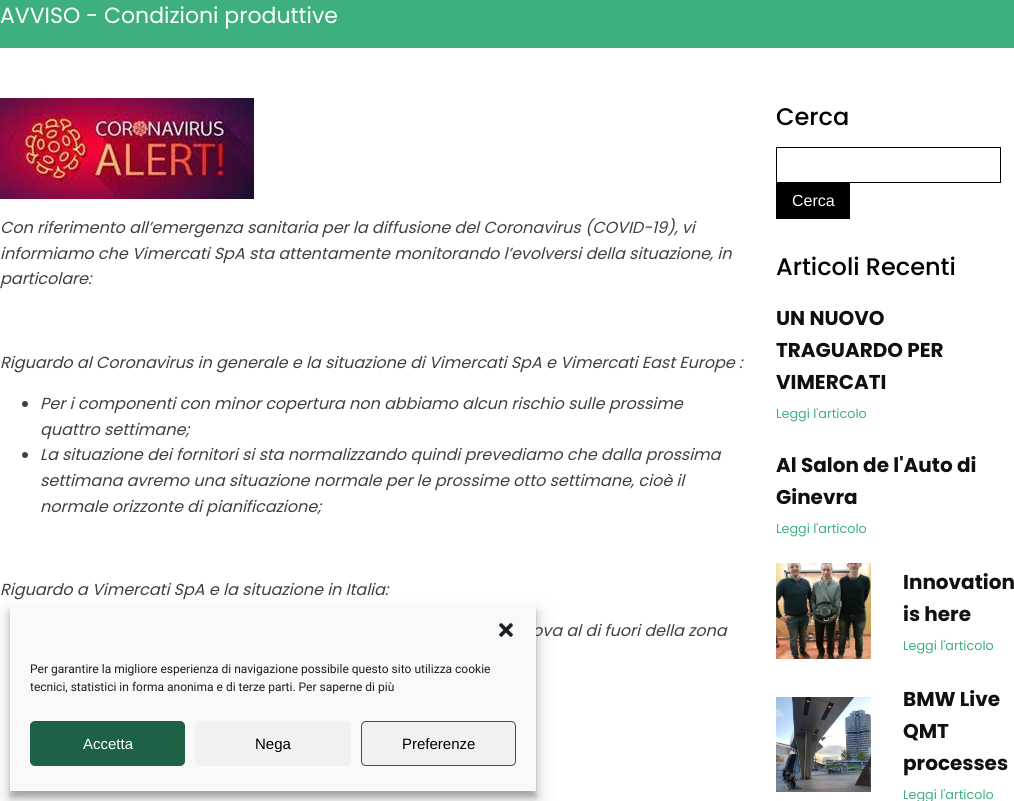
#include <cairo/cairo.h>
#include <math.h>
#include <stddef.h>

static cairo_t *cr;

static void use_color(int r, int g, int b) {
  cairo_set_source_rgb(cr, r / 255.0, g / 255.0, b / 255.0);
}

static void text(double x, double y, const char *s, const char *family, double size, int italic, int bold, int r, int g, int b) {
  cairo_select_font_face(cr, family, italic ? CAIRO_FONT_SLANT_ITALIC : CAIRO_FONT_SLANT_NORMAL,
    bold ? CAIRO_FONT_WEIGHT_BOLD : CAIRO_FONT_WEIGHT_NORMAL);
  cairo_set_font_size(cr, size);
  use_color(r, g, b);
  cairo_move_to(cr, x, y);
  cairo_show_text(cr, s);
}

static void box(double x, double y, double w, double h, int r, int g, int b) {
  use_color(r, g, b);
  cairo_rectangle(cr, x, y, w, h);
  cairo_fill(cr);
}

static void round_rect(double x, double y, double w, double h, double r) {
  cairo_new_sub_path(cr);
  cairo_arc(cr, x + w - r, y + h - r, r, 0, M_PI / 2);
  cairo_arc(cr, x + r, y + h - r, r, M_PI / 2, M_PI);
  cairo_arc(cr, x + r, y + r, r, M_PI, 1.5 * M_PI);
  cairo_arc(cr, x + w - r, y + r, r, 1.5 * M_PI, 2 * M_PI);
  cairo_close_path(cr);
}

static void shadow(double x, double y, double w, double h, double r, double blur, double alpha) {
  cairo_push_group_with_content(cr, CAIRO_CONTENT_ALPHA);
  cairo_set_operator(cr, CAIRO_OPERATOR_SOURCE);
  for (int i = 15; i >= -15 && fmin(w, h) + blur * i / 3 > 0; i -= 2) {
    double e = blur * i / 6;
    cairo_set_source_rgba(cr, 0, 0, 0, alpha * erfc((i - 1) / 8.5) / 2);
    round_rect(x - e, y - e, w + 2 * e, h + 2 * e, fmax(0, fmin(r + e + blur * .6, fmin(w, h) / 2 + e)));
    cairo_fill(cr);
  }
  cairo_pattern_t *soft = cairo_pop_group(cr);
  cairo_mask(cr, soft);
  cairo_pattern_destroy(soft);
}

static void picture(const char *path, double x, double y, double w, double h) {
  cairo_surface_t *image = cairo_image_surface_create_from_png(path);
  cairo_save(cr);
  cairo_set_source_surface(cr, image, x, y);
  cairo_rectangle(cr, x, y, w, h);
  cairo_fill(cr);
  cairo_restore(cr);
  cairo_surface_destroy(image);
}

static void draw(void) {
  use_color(255, 255, 255);
  cairo_paint(cr);
  box(0, 0, 1014, 48, 61, 176, 125);
  picture("img_01.png", 0, 98, 254, 101);
  use_color(64, 64, 64);
  cairo_arc(cr, 25, 404, 3, 0, 2 * M_PI);
  cairo_fill(cr);
  cairo_arc(cr, 25, 455, 3, 0, 2 * M_PI);
  cairo_fill(cr);
  cairo_rectangle(cr, 776.5, 147.5, 224, 35);
  use_color(0, 0, 0);
  cairo_set_line_width(cr, 1);
  cairo_stroke(cr);
  box(776, 183, 74, 36, 0, 0, 0);
  picture("img_02.png", 776, 563, 95, 96);
  picture("img_03.png", 776, 697, 95, 95);
  use_color(0, 0, 0);
  shadow(10, 611, 526, 186, 0, 3, 0.23);
  shadow(10, 615, 526, 186, 0, 10, 0.19);
  text(0, 23, "AVVISO - Condizioni produttive", "Poppins", 22, 0, 0, 255, 255, 255);
  text(0, 233, "Con riferimento all’emergenza sanitaria per la diffusione del Coronavirus (COVID-19), vi", "Poppins", 16, 1, 0, 64, 64, 64);
  text(0, 259, "informiamo che Vimercati SpA sta attentamente monitorando l’evolversi della situazione, in", "Poppins", 16, 1, 0, 64, 64, 64);
  text(0, 284, "particolare:", "Poppins", 16, 1, 0, 64, 64, 64);
  text(0, 368, "Riguardo al Coronavirus in generale e la situazione di Vimercati SpA e Vimercati East Europe :", "Poppins", 16, 1, 0, 64, 64, 64);
  text(40, 409, "Per i componenti con minor copertura non abbiamo alcun rischio sulle prossime", "Poppins", 16, 1, 0, 64, 64, 64);
  text(40, 435, "quattro settimane;", "Poppins", 16, 1, 0, 64, 64, 64);
  text(40, 460, "La situazione dei fornitori si sta normalizzando quindi prevediamo che dalla prossima", "Poppins", 16, 1, 0, 64, 64, 64);
  text(40, 486, "settimana avremo una situazione normale per le prossime otto settimane, cioè il", "Poppins", 16, 1, 0, 64, 64, 64);
  text(40, 512, "normale orizzonte di pianificazione;", "Poppins", 16, 1, 0, 64, 64, 64);
  text(0, 595, "Riguardo a Vimercati SpA e la situazione in Italia:", "Poppins", 16, 1, 0, 64, 64, 64);
  text(532, 636, "ova al di fuori della zona", "Poppins", 16, 1, 0, 64, 64, 64);
  text(776, 125, "Cerca", "Poppins Medium", 24, 0, 0, 0, 0, 0);
  text(792, 206, "Cerca", "Liberation Sans", 16, 0, 0, 255, 255, 255);
  text(776, 275, "Articoli Recenti", "Poppins Medium", 24, 0, 0, 0, 0, 0);
  text(776, 325, "UN NUOVO", "Poppins", 20, 0, 1, 16, 16, 16);
  text(776, 357, "TRAGUARDO PER", "Poppins", 20, 0, 1, 16, 16, 16);
  text(776, 389, "VIMERCATI", "Poppins", 20, 0, 1, 16, 16, 16);
  text(776, 418, "Leggi l'articolo", "Poppins", 12.75, 0, 0, 61, 176, 125);
  text(776, 472, "Al Salon de l'Auto di", "Poppins", 20, 0, 1, 16, 16, 16);
  text(776, 504, "Ginevra", "Poppins", 20, 0, 1, 16, 16, 16);
  text(776, 533, "Leggi l'articolo", "Poppins", 12.75, 0, 0, 61, 176, 125);
  text(903, 589, "Innovation", "Poppins", 20, 0, 1, 16, 16, 16);
  text(903, 621, "is here", "Poppins", 20, 0, 1, 16, 16, 16);
  text(903, 650, "Leggi l'articolo", "Poppins", 12.75, 0, 0, 61, 176, 125);
  text(903, 706, "BMW Live", "Poppins", 20, 0, 1, 16, 16, 16);
  text(903, 738, "QMT", "Poppins", 20, 0, 1, 16, 16, 16);
  text(903, 770, "processes", "Poppins", 20, 0, 1, 16, 16, 16);
  text(903, 799, "Leggi l'articolo", "Poppins", 12.75, 0, 0, 61, 176, 125);
  box(10, 605, 526, 186, 249, 249, 249);
  picture("img_04.png", 499, 623, 14, 14);
  text(30, 673, "Per garantire la migliore esperienza di navigazione possibile questo sito utilizza cookie", "Roboto", 12, 0, 0, 25, 30, 35);
  text(30, 691, "tecnici, statistici in forma anonima e di terze parti. Per saperne di più", "Roboto", 12, 0, 0, 25, 30, 35);
  use_color(30, 98, 69);
  round_rect(30.5, 721.5, 154, 44, 4.5);
  cairo_fill_preserve(cr);
  cairo_stroke(cr);
  text(83, 749, "Accetta", "Liberation Sans", 15, 0, 0, 255, 255, 255);
  use_color(241, 241, 241);
  round_rect(195, 721, 156, 45, 5);
  cairo_fill(cr);
  text(255, 749, "Nega", "Liberation Sans", 15, 0, 0, 0, 0, 0);
  use_color(241, 241, 241);
  round_rect(361.5, 721.5, 154, 44, 4.5);
  cairo_fill_preserve(cr);
  use_color(30, 98, 69);
  cairo_stroke(cr);
  text(402, 749, "Preferenze", "Liberation Sans", 15, 0, 0, 0, 0, 0);
}

int main(void) {
  cairo_surface_t *surface = cairo_image_surface_create(CAIRO_FORMAT_RGB24, 1014, 801);
  cr = cairo_create(surface);
  cairo_font_options_t *options = cairo_font_options_create();
  cairo_font_options_set_hint_metrics(options, CAIRO_HINT_METRICS_OFF);
  cairo_font_options_set_hint_style(options, CAIRO_HINT_STYLE_NONE);
  cairo_set_font_options(cr, options);
  cairo_set_miter_limit(cr, 4);
  draw();
  cairo_surface_write_to_png(surface, "out.png");
  cairo_font_options_destroy(options);
  cairo_destroy(cr);
  cairo_surface_destroy(surface);
  return 0;
}
